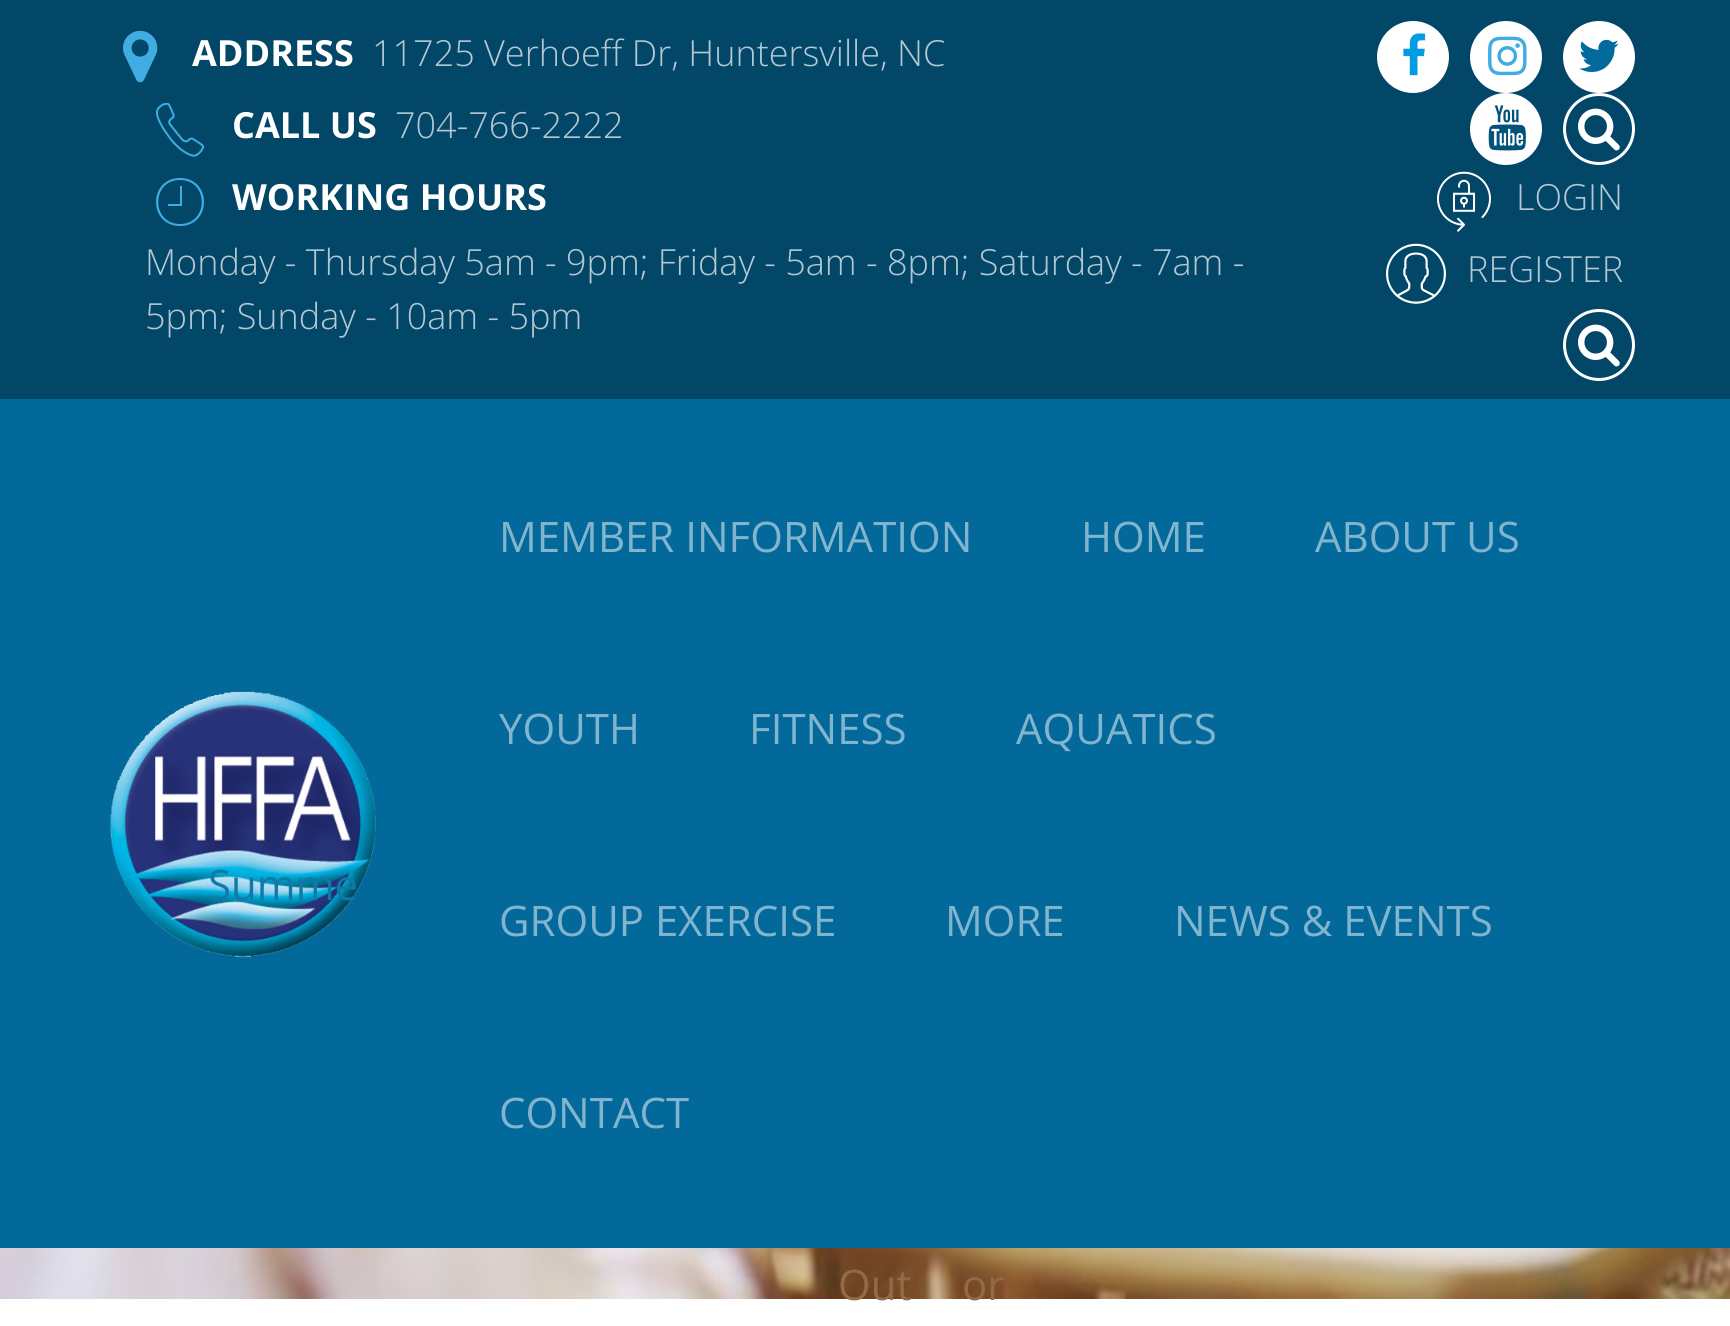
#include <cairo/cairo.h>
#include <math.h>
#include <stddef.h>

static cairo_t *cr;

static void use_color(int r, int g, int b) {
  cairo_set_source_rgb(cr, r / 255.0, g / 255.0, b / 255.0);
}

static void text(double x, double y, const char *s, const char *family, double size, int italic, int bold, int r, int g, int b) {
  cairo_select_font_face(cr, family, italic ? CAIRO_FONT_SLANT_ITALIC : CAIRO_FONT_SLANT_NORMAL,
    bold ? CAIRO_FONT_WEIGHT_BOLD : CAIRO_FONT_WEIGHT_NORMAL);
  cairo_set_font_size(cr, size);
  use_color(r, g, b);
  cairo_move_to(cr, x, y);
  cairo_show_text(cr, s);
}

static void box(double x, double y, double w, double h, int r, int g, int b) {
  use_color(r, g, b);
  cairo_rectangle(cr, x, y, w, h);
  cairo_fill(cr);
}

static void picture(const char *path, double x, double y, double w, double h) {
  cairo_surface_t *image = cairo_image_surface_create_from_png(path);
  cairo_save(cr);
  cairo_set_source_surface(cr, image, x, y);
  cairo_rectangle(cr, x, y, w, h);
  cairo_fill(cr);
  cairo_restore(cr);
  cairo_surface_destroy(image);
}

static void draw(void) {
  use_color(255, 255, 255);
  cairo_paint(cr);
  box(0, 399, 1730, 849, 3, 104, 154);
  box(0, 0, 1730, 399, 2, 70, 104);
  picture("img_01.png", 123, 30, 35, 53);
  picture("img_02.png", 156, 102, 48, 55);
  use_color(64, 173, 226);
  cairo_new_path(cr);
  cairo_move_to(cr, 180, 178);
  cairo_curve_to(cr, 148, 178, 148, 226, 180, 226);
  cairo_curve_to(cr, 212, 226, 212, 178, 180, 178);
  cairo_close_path(cr);
  cairo_move_to(cr, 180, 224);
  cairo_curve_to(cr, 151, 224, 151, 180, 180, 180);
  cairo_curve_to(cr, 209, 180, 209, 224, 180, 224);
  cairo_close_path(cr);
  cairo_move_to(cr, 180, 204);
  cairo_line_to(cr, 168, 204);
  cairo_line_to(cr, 168, 206);
  cairo_line_to(cr, 182, 206);
  cairo_line_to(cr, 182, 186);
  cairo_line_to(cr, 180, 186);
  cairo_close_path(cr);
  cairo_fill(cr);
  use_color(255, 255, 255);
  cairo_arc(cr, 1413, 57, 36, 0, 2 * M_PI);
  cairo_fill(cr);
  picture("img_03.png", 1403, 33, 23, 43);
  cairo_arc(cr, 1506, 57, 36, 0, 2 * M_PI);
  cairo_fill(cr);
  picture("img_04.png", 1488, 36, 39, 40);
  cairo_arc(cr, 1599, 57, 36, 0, 2 * M_PI);
  cairo_fill(cr);
  picture("img_05.png", 1579, 39, 40, 33);
  cairo_arc(cr, 1506, 129, 36, 0, 2 * M_PI);
  cairo_fill(cr);
  picture("img_06.png", 1488, 105, 38, 46);
  cairo_arc(cr, 1599, 129, 34.5, 0, 2 * M_PI);
  cairo_set_line_width(cr, 3);
  cairo_stroke(cr);
  picture("img_07.png", 1578, 108, 42, 43);
  picture("img_08.png", 1437, 171, 54, 61);
  picture("img_09.png", 1386, 243, 60, 61);
  cairo_arc(cr, 1599, 345, 34.5, 0, 2 * M_PI);
  cairo_stroke(cr);
  picture("img_07.png", 1578, 324, 42, 43);
  picture("img_10.png", 110, 691, 266, 267);
  picture("img_11.png", 0, 1248, 1730, 51);
  text(192, 66, "ADDRESS", "Open Sans", 36, 0, 1, 255, 255, 255);
  text(372, 66, "11725 Verhoeff Dr, Huntersville, NC", "Open Sans Light", 36, 0, 0, 179, 200, 210);
  text(232, 138, "CALL US", "Open Sans", 36, 0, 1, 255, 255, 255);
  text(395, 138, "704-766-2222", "Open Sans Light", 36, 0, 0, 179, 200, 210);
  text(232, 210, "WORKING HOURS", "Open Sans", 36, 0, 1, 255, 255, 255);
  text(145, 275, "Monday - Thursday 5am - 9pm; Friday - 5am - 8pm; Saturday - 7am -", "Open Sans Light", 36, 0, 0, 179, 200, 210);
  text(145, 329, "5pm; Sunday - 10am - 5pm", "Open Sans Light", 36, 0, 0, 179, 200, 210);
  text(1516, 210, "LOGIN", "Open Sans Light", 36, 0, 0, 179, 200, 210);
  text(1467, 282, "REGISTER", "Open Sans Light", 36, 0, 0, 179, 200, 210);
  text(499, 552, "MEMBER INFORMATION", "Open Sans", 42, 0, 0, 129, 180, 205);
  text(1081, 552, "HOME", "Open Sans", 42, 0, 0, 129, 180, 205);
  text(1315, 552, "ABOUT US", "Open Sans", 42, 0, 0, 129, 180, 205);
  text(499, 744, "YOUTH", "Open Sans", 42, 0, 0, 129, 180, 205);
  text(208, 900, "Summe", "Open Sans", 42, 0, 0, 17, 121, 167);
  text(749, 744, "FITNESS", "Open Sans", 42, 0, 0, 129, 180, 205);
  text(1016, 744, "AQUATICS", "Open Sans", 42, 0, 0, 129, 180, 205);
  text(838, 1300, "Out", "Open Sans", 42, 0, 0, 145, 107, 69);
  text(962, 1300, "or", "Open Sans", 42, 0, 0, 145, 107, 69);
  text(499, 936, "GROUP EXERCISE", "Open Sans", 42, 0, 0, 129, 180, 205);
  text(945, 936, "MORE", "Open Sans", 42, 0, 0, 129, 180, 205);
  text(1174, 936, "NEWS & EVENTS", "Open Sans", 42, 0, 0, 129, 180, 205);
  text(499, 1128, "CONTACT", "Open Sans", 42, 0, 0, 129, 180, 205);
}

int main(void) {
  cairo_surface_t *surface = cairo_image_surface_create(CAIRO_FORMAT_RGB24, 1730, 1326);
  cr = cairo_create(surface);
  cairo_font_options_t *options = cairo_font_options_create();
  cairo_font_options_set_hint_metrics(options, CAIRO_HINT_METRICS_OFF);
  cairo_font_options_set_hint_style(options, CAIRO_HINT_STYLE_NONE);
  cairo_set_font_options(cr, options);
  cairo_set_miter_limit(cr, 4);
  draw();
  cairo_surface_write_to_png(surface, "out.png");
  cairo_font_options_destroy(options);
  cairo_destroy(cr);
  cairo_surface_destroy(surface);
  return 0;
}
